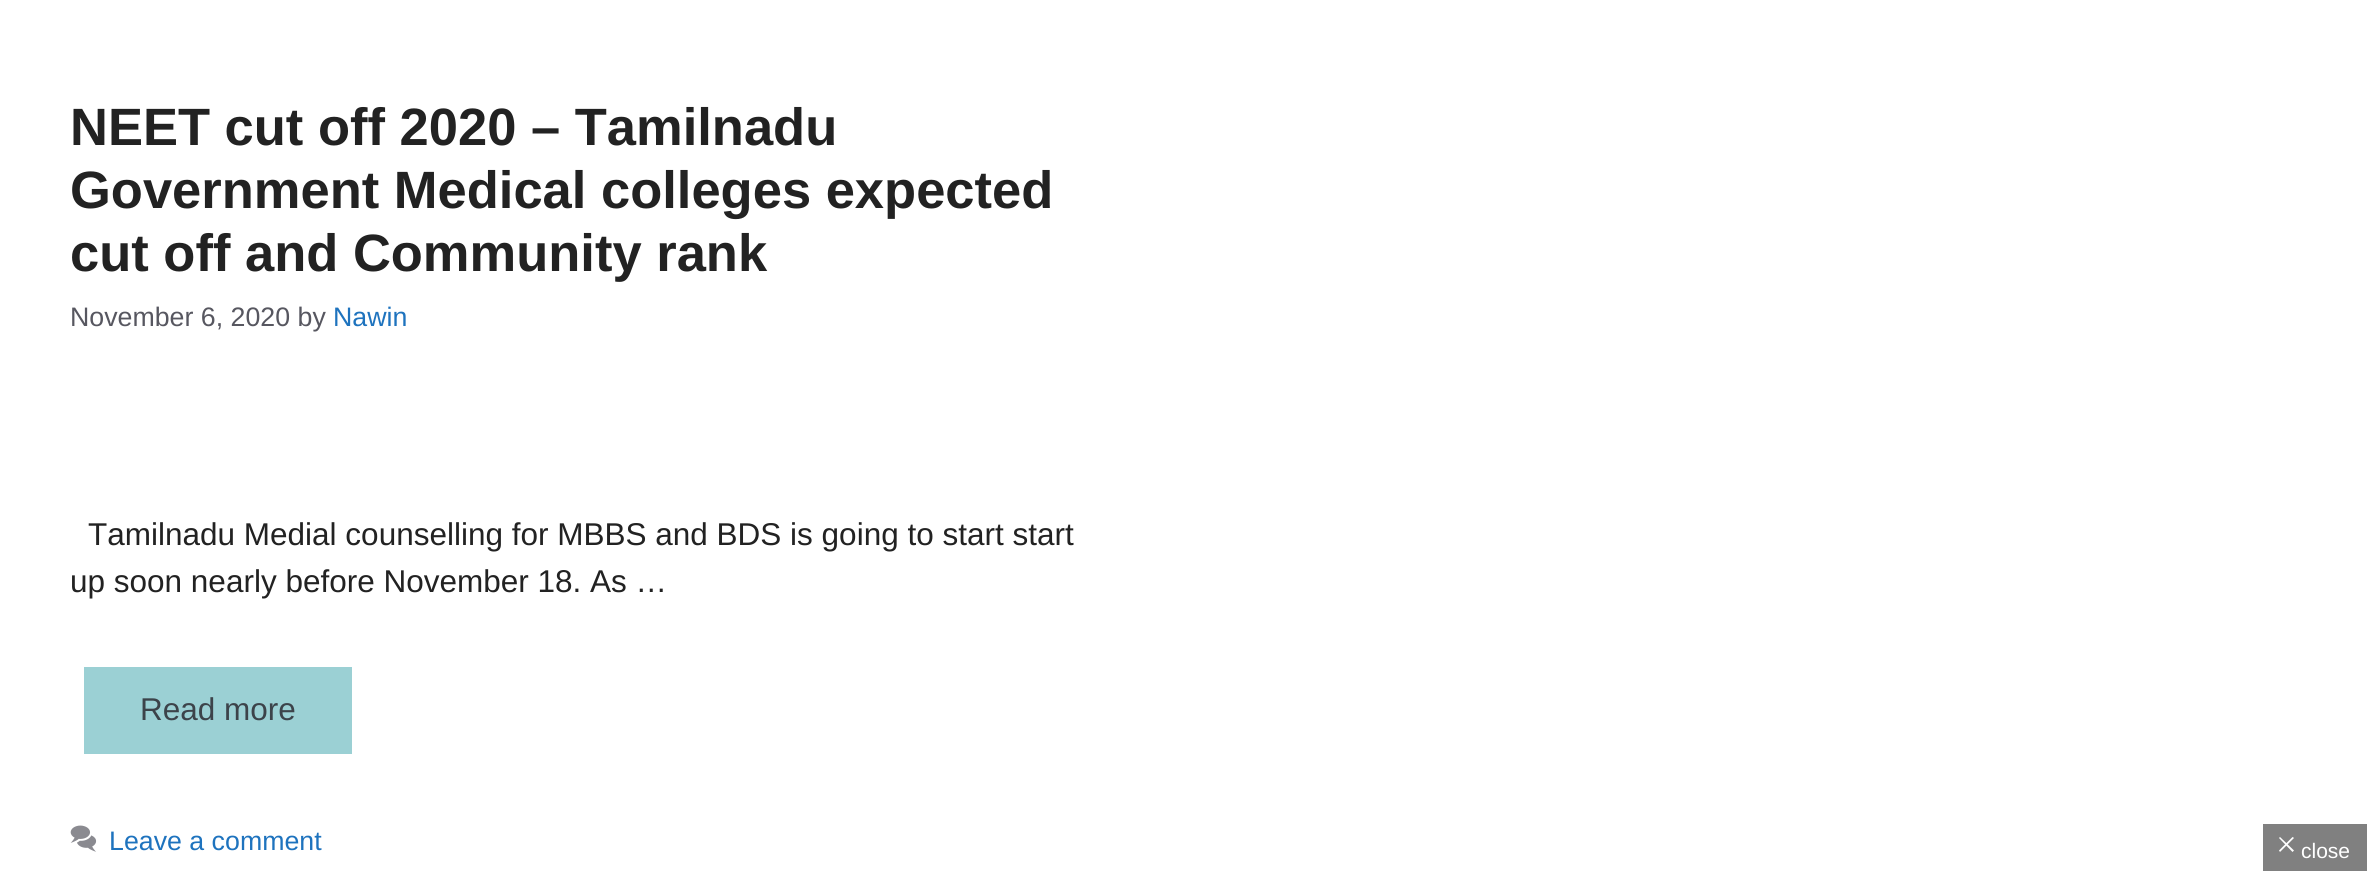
#include <cairo/cairo.h>
#include <math.h>
#include <stddef.h>

static cairo_t *cr;

static void use_color(int r, int g, int b) {
  cairo_set_source_rgb(cr, r / 255.0, g / 255.0, b / 255.0);
}

static void text(double x, double y, const char *s, const char *family, double size, int italic, int bold, int r, int g, int b) {
  cairo_select_font_face(cr, family, italic ? CAIRO_FONT_SLANT_ITALIC : CAIRO_FONT_SLANT_NORMAL,
    bold ? CAIRO_FONT_WEIGHT_BOLD : CAIRO_FONT_WEIGHT_NORMAL);
  cairo_set_font_size(cr, size);
  use_color(r, g, b);
  cairo_move_to(cr, x, y);
  cairo_show_text(cr, s);
}

static void box(double x, double y, double w, double h, int r, int g, int b) {
  use_color(r, g, b);
  cairo_rectangle(cr, x, y, w, h);
  cairo_fill(cr);
}

static void picture(const char *path, double x, double y, double w, double h) {
  cairo_surface_t *image = cairo_image_surface_create_from_png(path);
  cairo_save(cr);
  cairo_set_source_surface(cr, image, x, y);
  cairo_rectangle(cr, x, y, w, h);
  cairo_fill(cr);
  cairo_restore(cr);
  cairo_surface_destroy(image);
}

static void draw(void) {
  use_color(255, 255, 255);
  cairo_paint(cr);
  box(84, 667, 268, 87, 155, 208, 212);
  picture("img_01.png", 70, 825, 27, 27);
  box(2263, 824, 104, 47, 128, 128, 128);
  use_color(255, 255, 255);
  cairo_new_path(cr);
  cairo_move_to(cr, 2280, 837);
  cairo_line_to(cr, 2294, 850.5);
  cairo_line_to(cr, 2292.5, 852);
  cairo_line_to(cr, 2279, 838);
  cairo_close_path(cr);
  cairo_fill(cr);
  cairo_new_path(cr);
  cairo_move_to(cr, 2292.5, 837);
  cairo_line_to(cr, 2294, 838);
  cairo_line_to(cr, 2280, 852);
  cairo_line_to(cr, 2279, 850.5);
  cairo_close_path(cr);
  cairo_fill(cr);
  text(70, 145, "NEET cut off 2020 – Tamilnadu", "Liberation Sans", 52.5, 0, 1, 34, 34, 34);
  text(70, 208, "Government Medical colleges expected", "Liberation Sans", 52.5, 0, 1, 34, 34, 34);
  text(70, 271, "cut off and Community rank", "Liberation Sans", 52.5, 0, 1, 34, 34, 34);
  text(70, 326, "November 6, 2020 by", "Liberation Sans", 26.75, 0, 0, 87, 87, 96);
  text(333, 326, "Nawin", "Liberation Sans", 26.75, 0, 0, 30, 115, 190);
  text(88, 545, "Tamilnadu Medial counselling for MBBS and BDS is going to start start", "Liberation Sans", 31.5, 0, 0, 34, 34, 34);
  text(70, 592, "up soon nearly before November 18. As …", "Liberation Sans", 31.5, 0, 0, 34, 34, 34);
  text(140, 720, "Read more", "Liberation Sans", 31.5, 0, 0, 60, 67, 74);
  text(109, 850, "Leave a comment", "Liberation Sans", 26.75, 0, 0, 30, 115, 190);
  text(2301, 858, "close", "Liberation Sans", 21, 0, 0, 255, 255, 255);
}

int main(void) {
  cairo_surface_t *surface = cairo_image_surface_create(CAIRO_FORMAT_RGB24, 2367, 871);
  cr = cairo_create(surface);
  cairo_font_options_t *options = cairo_font_options_create();
  cairo_font_options_set_hint_metrics(options, CAIRO_HINT_METRICS_OFF);
  cairo_font_options_set_hint_style(options, CAIRO_HINT_STYLE_NONE);
  cairo_set_font_options(cr, options);
  cairo_set_miter_limit(cr, 4);
  draw();
  cairo_surface_write_to_png(surface, "out.png");
  cairo_font_options_destroy(options);
  cairo_destroy(cr);
  cairo_surface_destroy(surface);
  return 0;
}
